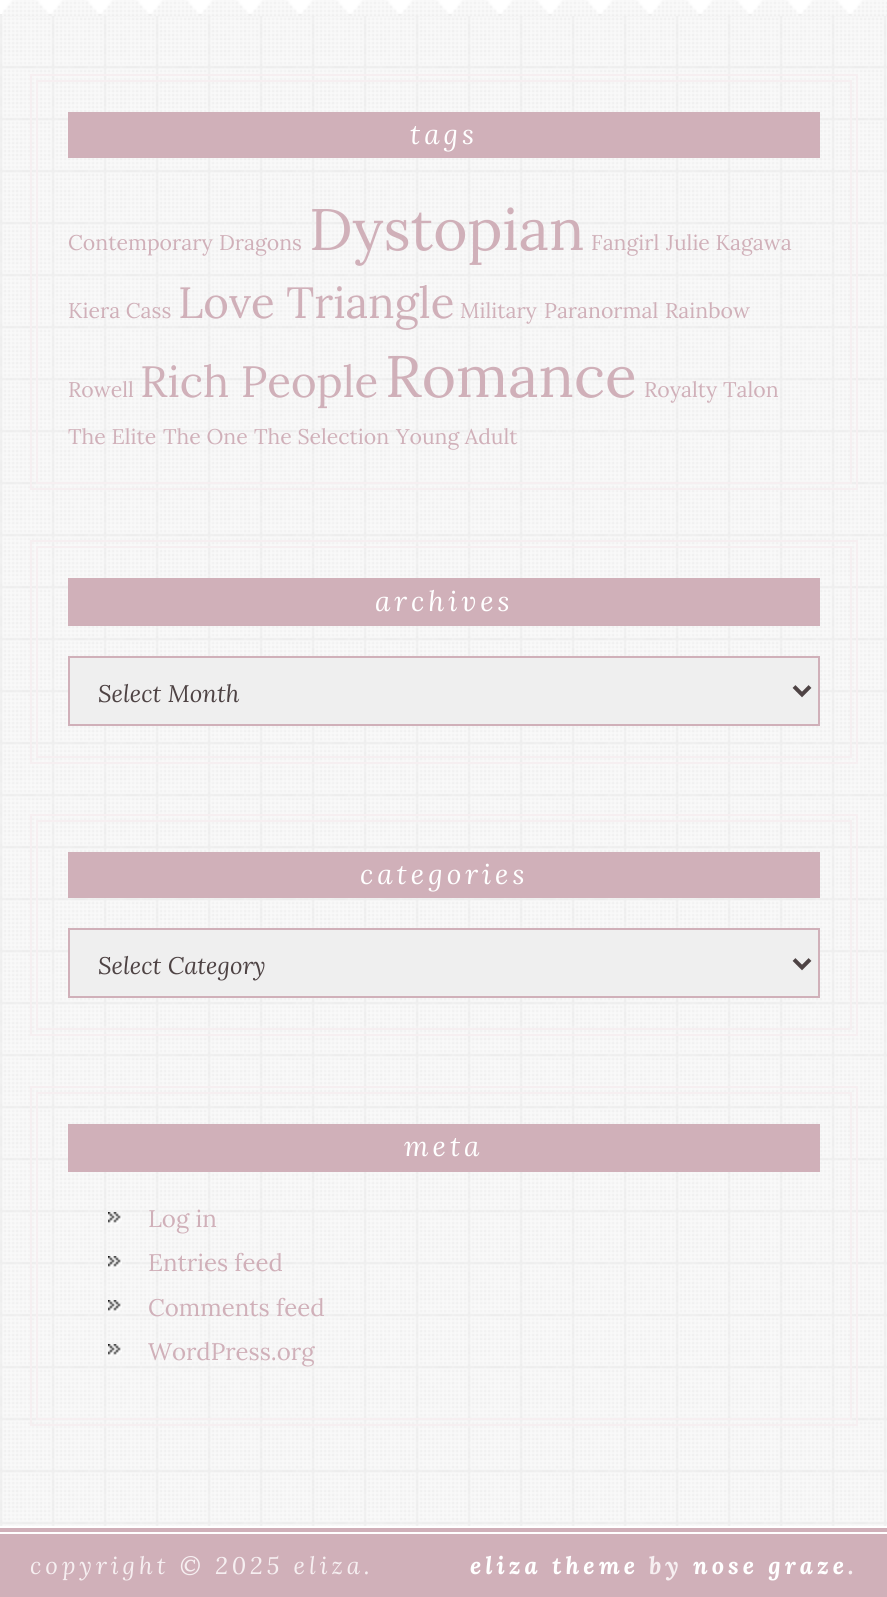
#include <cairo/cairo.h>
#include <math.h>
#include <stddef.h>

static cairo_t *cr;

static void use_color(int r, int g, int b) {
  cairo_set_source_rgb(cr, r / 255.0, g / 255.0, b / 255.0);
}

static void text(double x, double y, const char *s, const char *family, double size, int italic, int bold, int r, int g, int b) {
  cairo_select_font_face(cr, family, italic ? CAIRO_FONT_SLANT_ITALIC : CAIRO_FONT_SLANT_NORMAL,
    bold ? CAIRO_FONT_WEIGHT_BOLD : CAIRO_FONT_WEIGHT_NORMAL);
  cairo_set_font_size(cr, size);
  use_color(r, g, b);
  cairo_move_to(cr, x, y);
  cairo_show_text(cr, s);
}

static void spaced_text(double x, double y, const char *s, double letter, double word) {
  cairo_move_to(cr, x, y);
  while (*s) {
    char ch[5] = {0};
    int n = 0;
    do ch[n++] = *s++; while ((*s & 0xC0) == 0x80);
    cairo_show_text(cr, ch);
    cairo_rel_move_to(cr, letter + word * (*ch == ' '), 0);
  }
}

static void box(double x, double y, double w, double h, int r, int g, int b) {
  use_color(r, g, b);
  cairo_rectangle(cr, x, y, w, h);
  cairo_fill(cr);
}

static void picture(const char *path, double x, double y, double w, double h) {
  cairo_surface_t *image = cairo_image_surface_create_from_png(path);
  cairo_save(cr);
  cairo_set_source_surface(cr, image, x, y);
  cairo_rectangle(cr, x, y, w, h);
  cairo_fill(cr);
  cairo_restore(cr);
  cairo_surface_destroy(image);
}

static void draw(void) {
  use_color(255, 255, 255);
  cairo_paint(cr);
  picture("img_02.png", 0, 14, 887, 1512);
  picture("img_01.png", 2, 0, 885, 16);
  cairo_rectangle(cr, 31, 75, 826, 414);
  use_color(246, 239, 241);
  cairo_stroke(cr);
  cairo_rectangle(cr, 37, 81, 814, 402);
  cairo_stroke(cr);
  box(68, 112, 752, 46, 208, 176, 185);
  cairo_rectangle(cr, 31, 541, 826, 222);
  use_color(246, 239, 241);
  cairo_stroke(cr);
  cairo_rectangle(cr, 37, 547, 814, 210);
  cairo_stroke(cr);
  box(68, 578, 752, 48, 208, 176, 185);
  use_color(239, 239, 239);
  cairo_rectangle(cr, 69, 657, 750, 68);
  cairo_fill_preserve(cr);
  use_color(208, 176, 185);
  cairo_stroke(cr);
  cairo_new_path(cr);
  cairo_move_to(cr, 794, 686.5);
  cairo_line_to(cr, 802, 694.5);
  cairo_line_to(cr, 810, 686.5);
  use_color(78, 67, 68);
  cairo_set_line_width(cr, 4);
  cairo_stroke(cr);
  cairo_rectangle(cr, 31, 815, 826, 220);
  use_color(246, 239, 241);
  cairo_set_line_width(cr, 2);
  cairo_stroke(cr);
  cairo_rectangle(cr, 37, 821, 814, 208);
  cairo_stroke(cr);
  box(68, 852, 752, 46, 208, 176, 185);
  use_color(239, 239, 239);
  cairo_rectangle(cr, 69, 929, 750, 68);
  cairo_fill_preserve(cr);
  use_color(208, 176, 185);
  cairo_stroke(cr);
  cairo_new_path(cr);
  cairo_move_to(cr, 794, 959.5);
  cairo_line_to(cr, 802, 967.5);
  cairo_line_to(cr, 810, 959.5);
  use_color(78, 67, 68);
  cairo_set_line_width(cr, 4);
  cairo_stroke(cr);
  cairo_rectangle(cr, 31, 1087, 826, 338);
  use_color(246, 239, 241);
  cairo_set_line_width(cr, 2);
  cairo_stroke(cr);
  cairo_rectangle(cr, 37, 1093, 814, 326);
  cairo_stroke(cr);
  box(68, 1124, 752, 48, 208, 176, 185);
  picture("img_03.png", 108, 1212, 14, 12);
  picture("img_04.png", 108, 1256, 14, 12);
  picture("img_05.png", 108, 1300, 14, 12);
  picture("img_06.png", 108, 1344, 14, 12);
  box(0, 1528, 887, 69, 208, 176, 185);
  box(0, 1532, 887, 2, 255, 255, 255);
  cairo_select_font_face(cr, "Lora", CAIRO_FONT_SLANT_ITALIC, CAIRO_FONT_WEIGHT_NORMAL);
  cairo_set_font_size(cr, 28);
  spaced_text(410, 144, "tags", 4, 0);
  text(68, 250, "Contemporary", "Lora", 21.25, 0, 0, 208, 176, 185);
  text(219, 250, "Dragons", "Lora", 21.25, 0, 0, 208, 176, 185);
  text(309, 250, "Dystopian", "Lora", 58.5, 0, 0, 208, 176, 185);
  text(591, 250, "Fangirl", "Lora", 21.25, 0, 0, 208, 176, 185);
  text(666, 250, "Julie Kagawa", "Lora", 21.25, 0, 0, 208, 176, 185);
  text(68, 318, "Kiera Cass", "Lora", 21.25, 0, 0, 208, 176, 185);
  text(178, 318, "Love Triangle", "Lora", 43.75, 0, 0, 208, 176, 185);
  text(460, 318, "Military", "Lora", 21.25, 0, 0, 208, 176, 185);
  text(544, 318, "Paranormal", "Lora", 21.25, 0, 0, 208, 176, 185);
  text(665, 318, "Rainbow", "Lora", 21.25, 0, 0, 208, 176, 185);
  text(68, 397, "Rowell", "Lora", 21.25, 0, 0, 208, 176, 185);
  text(140, 397, "Rich People", "Lora", 43.75, 0, 0, 208, 176, 185);
  text(385, 397, "Romance", "Lora", 58.5, 0, 0, 208, 176, 185);
  text(644, 397, "Royalty", "Lora", 21.25, 0, 0, 208, 176, 185);
  text(723, 397, "Talon", "Lora", 21.25, 0, 0, 208, 176, 185);
  text(68, 444, "The Elite", "Lora", 21.25, 0, 0, 208, 176, 185);
  text(163, 444, "The One", "Lora", 21.25, 0, 0, 208, 176, 185);
  text(254, 444, "The Selection", "Lora", 21.25, 0, 0, 208, 176, 185);
  text(396, 444, "Young Adult", "Lora", 21.25, 0, 0, 208, 176, 185);
  cairo_select_font_face(cr, "Lora", CAIRO_FONT_SLANT_ITALIC, CAIRO_FONT_WEIGHT_NORMAL);
  cairo_set_font_size(cr, 28);
  use_color(255, 255, 255);
  spaced_text(375, 611, "archives", 4, 0);
  text(98, 702, "Select Month", "Lora", 24, 1, 0, 78, 67, 68);
  cairo_set_font_size(cr, 28);
  use_color(255, 255, 255);
  spaced_text(360, 884, "categories", 4, 0);
  text(98, 974, "Select Category", "Lora", 24, 1, 0, 78, 67, 68);
  cairo_set_font_size(cr, 28);
  use_color(255, 255, 255);
  spaced_text(404, 1156, "meta", 4, 0);
  text(148, 1227, "Log in", "Lora", 24, 0, 0, 208, 176, 185);
  text(148, 1271, "Entries feed", "Lora", 24, 0, 0, 208, 176, 185);
  text(148, 1316, "Comments feed", "Lora", 24, 0, 0, 208, 176, 185);
  text(148, 1360, "WordPress.org", "Lora", 24, 0, 0, 208, 176, 185);
  cairo_select_font_face(cr, "Lora", CAIRO_FONT_SLANT_ITALIC, CAIRO_FONT_WEIGHT_NORMAL);
  use_color(246, 239, 241);
  spaced_text(30, 1574, "copyright © 2025 eliza.", 4, 0);
  cairo_select_font_face(cr, "Lora", CAIRO_FONT_SLANT_ITALIC, CAIRO_FONT_WEIGHT_BOLD);
  use_color(255, 255, 255);
  spaced_text(470, 1574, "eliza theme", 4, 0);
  use_color(246, 239, 241);
  spaced_text(649, 1574, "by", 4, 0);
  use_color(255, 255, 255);
  spaced_text(693, 1574, "nose graze", 4, 0);
  use_color(246, 239, 241);
  spaced_text(848, 1574, ".", 4, 0);
}

int main(void) {
  cairo_surface_t *surface = cairo_image_surface_create(CAIRO_FORMAT_RGB24, 887, 1597);
  cr = cairo_create(surface);
  cairo_font_options_t *options = cairo_font_options_create();
  cairo_font_options_set_hint_metrics(options, CAIRO_HINT_METRICS_OFF);
  cairo_font_options_set_hint_style(options, CAIRO_HINT_STYLE_NONE);
  cairo_set_font_options(cr, options);
  cairo_set_miter_limit(cr, 4);
  draw();
  cairo_surface_write_to_png(surface, "out.png");
  cairo_font_options_destroy(options);
  cairo_destroy(cr);
  cairo_surface_destroy(surface);
  return 0;
}
